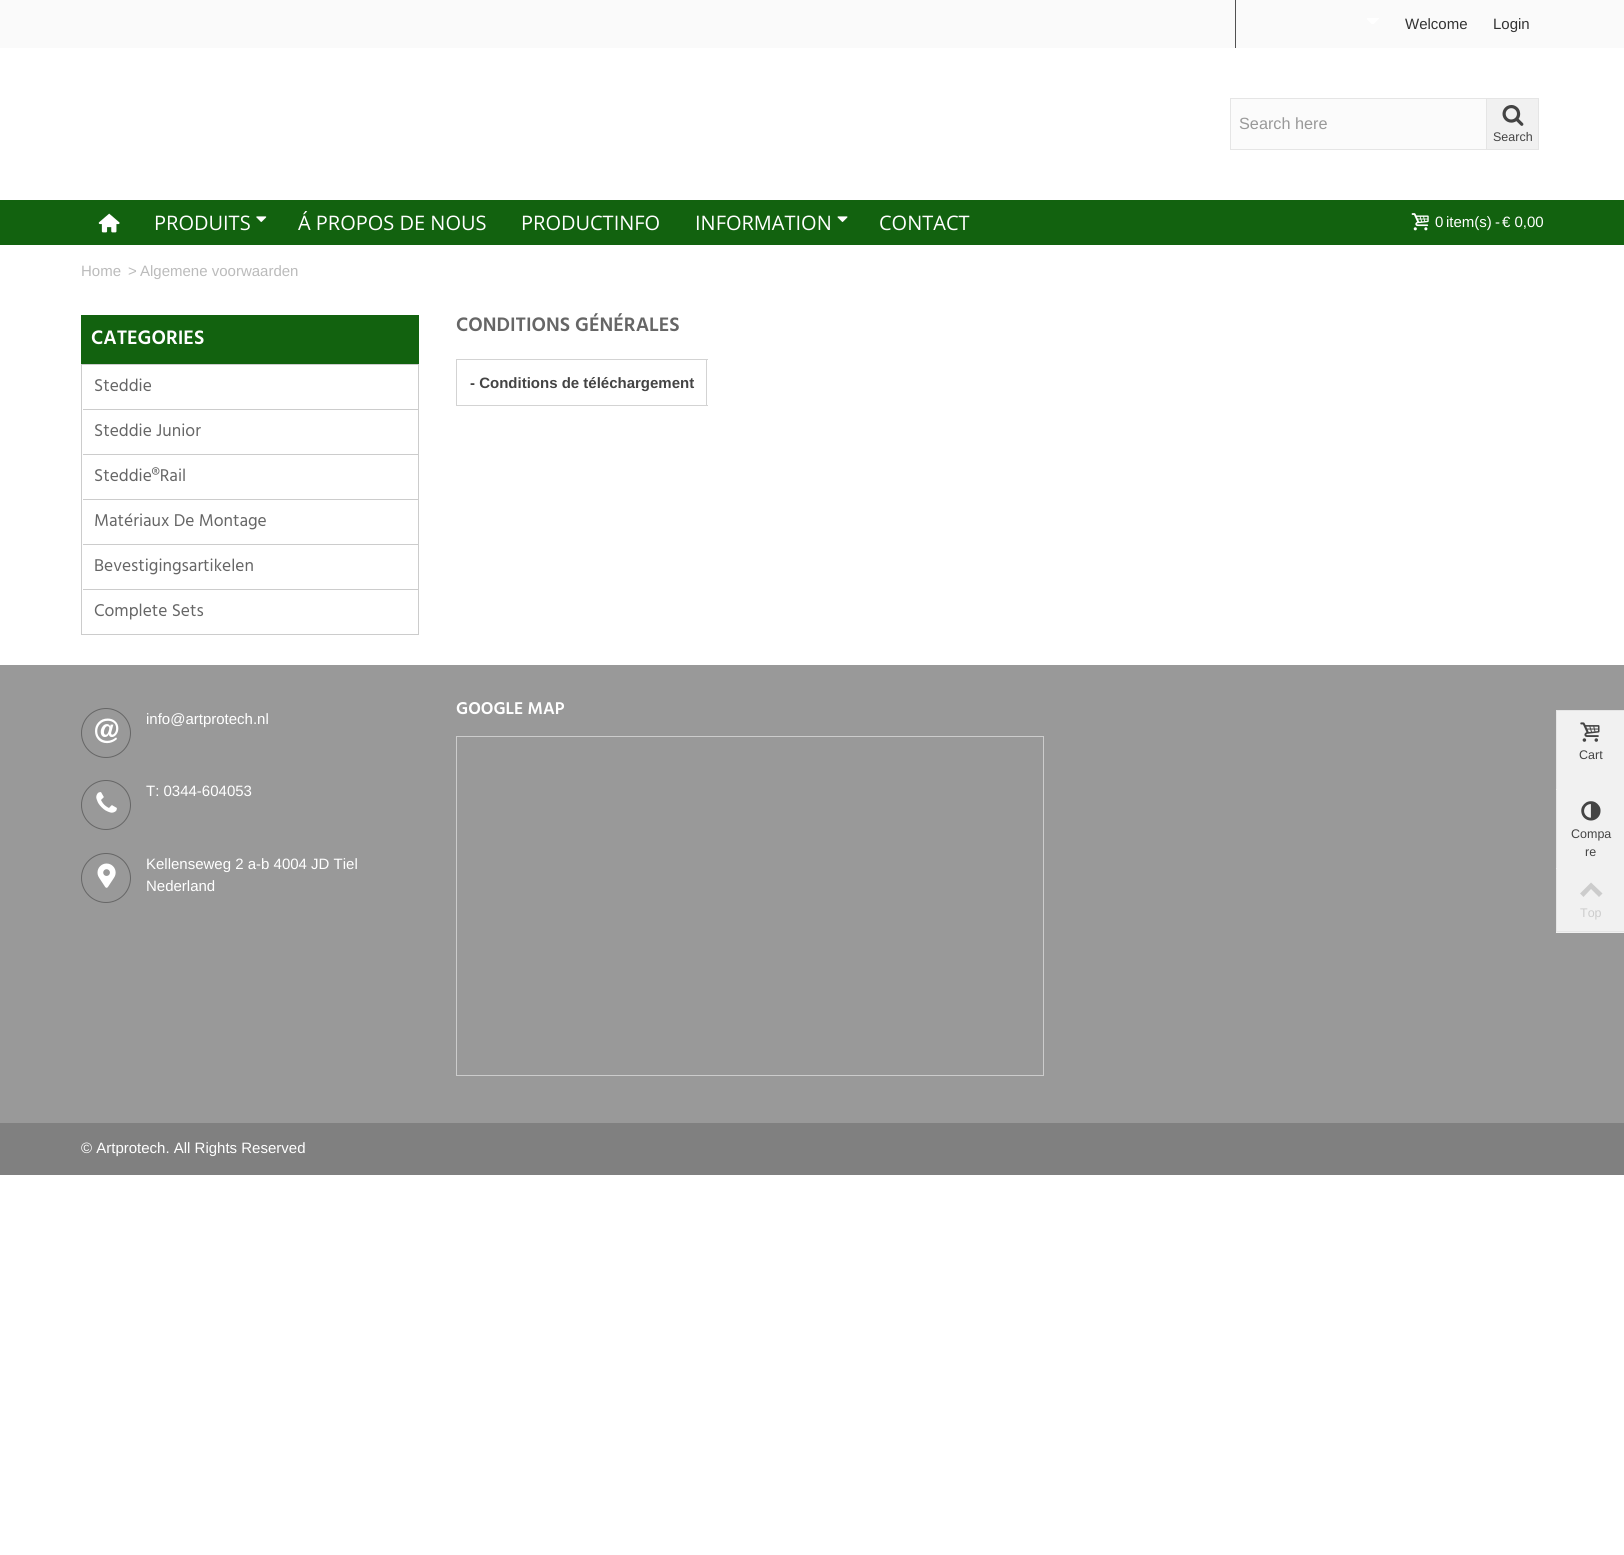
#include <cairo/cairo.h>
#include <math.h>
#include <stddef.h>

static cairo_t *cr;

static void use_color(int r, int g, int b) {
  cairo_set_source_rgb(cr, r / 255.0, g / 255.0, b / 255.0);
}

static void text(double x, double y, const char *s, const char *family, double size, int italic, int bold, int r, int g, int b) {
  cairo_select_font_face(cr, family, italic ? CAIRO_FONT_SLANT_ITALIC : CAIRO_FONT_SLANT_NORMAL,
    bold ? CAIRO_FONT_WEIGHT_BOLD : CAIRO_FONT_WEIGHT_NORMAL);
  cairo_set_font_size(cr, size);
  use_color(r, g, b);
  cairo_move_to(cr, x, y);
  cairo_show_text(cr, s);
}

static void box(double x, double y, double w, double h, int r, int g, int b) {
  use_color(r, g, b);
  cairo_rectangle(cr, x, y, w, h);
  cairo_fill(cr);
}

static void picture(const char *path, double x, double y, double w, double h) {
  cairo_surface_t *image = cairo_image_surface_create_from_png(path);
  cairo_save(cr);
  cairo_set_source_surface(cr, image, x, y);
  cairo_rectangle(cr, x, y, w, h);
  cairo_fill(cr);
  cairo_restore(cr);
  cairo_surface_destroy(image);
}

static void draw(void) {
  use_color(255, 255, 255);
  cairo_paint(cr);
  box(0, 0, 1624, 48, 250, 250, 250);
  box(1235, 0, 1, 48, 81, 81, 81);
  picture("img_01.png", 1367, 18, 12, 6);
  box(1231, 99, 255, 50, 251, 251, 251);
  box(1230, 98, 256, 1, 229, 229, 229);
  box(1230, 149, 256, 1, 229, 229, 229);
  box(1230, 98, 1, 52, 229, 229, 229);
  use_color(241, 241, 241);
  cairo_rectangle(cr, 1486.5, 98.5, 52, 51);
  cairo_fill_preserve(cr);
  use_color(229, 229, 229);
  cairo_set_line_width(cr, 1);
  cairo_stroke(cr);
  picture("img_02.png", 1502, 105, 22, 21);
  box(0, 200, 1624, 45, 18, 98, 15);
  picture("img_03.png", 98, 213, 22, 20);
  picture("img_04.png", 256, 216, 11, 6);
  picture("img_05.png", 837, 216, 11, 6);
  picture("img_06.png", 1411, 213, 18, 18);
  box(81, 315, 338, 49, 18, 98, 15);
  cairo_rectangle(cr, 81.5, 364.5, 337, 270);
  use_color(204, 204, 204);
  cairo_stroke(cr);
  box(83, 409, 335, 1, 204, 204, 204);
  box(83, 454, 335, 1, 204, 204, 204);
  box(83, 499, 335, 1, 204, 204, 204);
  box(83, 544, 335, 1, 204, 204, 204);
  box(83, 589, 335, 1, 204, 204, 204);
  box(456, 359, 252, 1, 211, 211, 211);
  box(706, 359, 1, 47, 211, 211, 211);
  box(456, 405, 252, 1, 211, 211, 211);
  box(456, 359, 1, 47, 211, 211, 211);
  box(0, 665, 1624, 458, 153, 153, 153);
  cairo_rectangle(cr, 456.5, 736.5, 587, 339);
  use_color(204, 204, 204);
  cairo_stroke(cr);
  cairo_arc(cr, 106, 733, 24.5, 0, 2 * M_PI);
  use_color(102, 102, 102);
  cairo_stroke(cr);
  picture("img_07.png", 95, 718, 24, 26);
  cairo_arc(cr, 106, 805, 24.5, 0, 2 * M_PI);
  cairo_stroke(cr);
  picture("img_08.png", 96, 792, 21, 21);
  cairo_arc(cr, 106, 878, 24.5, 0, 2 * M_PI);
  cairo_stroke(cr);
  picture("img_09.png", 97, 863, 19, 25);
  box(0, 1123, 1624, 52, 128, 128, 128);
  box(1556, 711, 68, 222, 241, 241, 241);
  box(1556, 710, 68, 1, 229, 229, 229);
  box(1556, 931, 68, 1, 229, 229, 229);
  box(1556, 711, 1, 78, 229, 229, 229);
  picture("img_10.png", 1580, 722, 20, 20);
  box(1556, 790, 1, 78, 229, 229, 229);
  picture("img_11.png", 1581, 801, 20, 20);
  box(1556, 869, 1, 62, 229, 229, 229);
  use_color(204, 204, 204);
  cairo_new_path(cr);
  cairo_move_to(cr, 1580, 893.5);
  cairo_line_to(cr, 1591, 882.5);
  cairo_line_to(cr, 1602.5, 893.5);
  cairo_line_to(cr, 1599, 897);
  cairo_line_to(cr, 1591, 889);
  cairo_line_to(cr, 1583.5, 897);
  cairo_close_path(cr);
  cairo_fill(cr);
  text(1405, 29, "Welcome", "Liberation Sans", 15, 0, 0, 51, 51, 51);
  text(1493, 29, "Login", "Liberation Sans", 15, 0, 0, 51, 51, 51);
  text(1239, 129, "Search here", "Liberation Sans", 16.25, 0, 0, 153, 153, 153);
  text(1493, 141, "Search", "Liberation Sans", 12.5, 0, 0, 68, 68, 68);
  text(154, 230, "PRODUITS", "Open Sans", 20, 0, 0, 255, 255, 255);
  text(298, 230, "Á PROPOS DE NOUS", "Open Sans", 20, 0, 0, 255, 255, 255);
  text(521, 230, "PRODUCTINFO", "Open Sans", 20, 0, 0, 255, 255, 255);
  text(695, 230, "INFORMATION", "Open Sans", 20, 0, 0, 255, 255, 255);
  text(879, 230, "CONTACT", "Open Sans", 20, 0, 0, 255, 255, 255);
  text(1435, 227, "0", "Liberation Sans", 15, 0, 0, 255, 255, 255);
  text(1446, 227, "item(s)", "Liberation Sans", 15, 0, 0, 255, 255, 255);
  text(1495, 227, "-", "Liberation Sans", 15, 0, 0, 255, 255, 255);
  text(1502, 227, "€ 0,00", "Liberation Sans", 15, 0, 0, 255, 255, 255);
  text(81, 276, "Home", "Liberation Sans", 15, 0, 0, 187, 187, 187);
  text(128, 276, ">", "Liberation Sans", 15, 0, 0, 187, 187, 187);
  text(140, 276, "Algemene voorwaarden", "Liberation Sans", 15, 0, 0, 187, 187, 187);
  text(91, 344, "CATEGORIES", "Hind SemiBold", 20, 0, 0, 255, 255, 255);
  text(94, 391, "Steddie", "Hind", 17.5, 0, 0, 102, 102, 102);
  text(94, 436, "Steddie Junior", "Hind", 17.5, 0, 0, 102, 102, 102);
  text(94, 481, "Steddie®Rail", "Hind", 17.5, 0, 0, 102, 102, 102);
  text(94, 526, "Matériaux De Montage", "Hind", 17.5, 0, 0, 102, 102, 102);
  text(94, 571, "Bevestigingsartikelen", "Hind", 17.5, 0, 0, 102, 102, 102);
  text(94, 616, "Complete Sets", "Hind", 17.5, 0, 0, 102, 102, 102);
  text(456, 331, "CONDITIONS GÉNÉRALES", "Hind SemiBold", 20, 0, 0, 102, 102, 102);
  text(470, 388, "- Conditions de téléchargement", "Liberation Sans", 15, 0, 1, 68, 68, 68);
  text(456, 714, "GOOGLE MAP", "Hind SemiBold", 17.5, 0, 0, 255, 255, 255);
  text(146, 724, "info@artprotech.nl", "Liberation Sans", 15, 0, 0, 255, 255, 255);
  text(146, 796, "T: 0344-604053", "Liberation Sans", 15, 0, 0, 255, 255, 255);
  text(146, 869, "Kellenseweg 2 a-b 4004 JD Tiel", "Liberation Sans", 15, 0, 0, 255, 255, 255);
  text(146, 891, "Nederland", "Liberation Sans", 15, 0, 0, 255, 255, 255);
  text(81, 1153, "© Artprotech. All Rights Reserved", "Liberation Sans", 15, 0, 0, 255, 255, 255);
  text(1579, 759, "Cart", "Liberation Sans", 12.5, 0, 0, 68, 68, 68);
  text(1571, 838, "Compa", "Liberation Sans", 12.5, 0, 0, 68, 68, 68);
  text(1585, 856, "re", "Liberation Sans", 12.5, 0, 0, 68, 68, 68);
  text(1580, 917, "Top", "Liberation Sans", 12.5, 0, 0, 204, 204, 204);
}

int main(void) {
  cairo_surface_t *surface = cairo_image_surface_create(CAIRO_FORMAT_RGB24, 1624, 1555);
  cr = cairo_create(surface);
  cairo_font_options_t *options = cairo_font_options_create();
  cairo_font_options_set_hint_metrics(options, CAIRO_HINT_METRICS_OFF);
  cairo_font_options_set_hint_style(options, CAIRO_HINT_STYLE_NONE);
  cairo_set_font_options(cr, options);
  cairo_set_miter_limit(cr, 4);
  draw();
  cairo_surface_write_to_png(surface, "out.png");
  cairo_font_options_destroy(options);
  cairo_destroy(cr);
  cairo_surface_destroy(surface);
  return 0;
}
